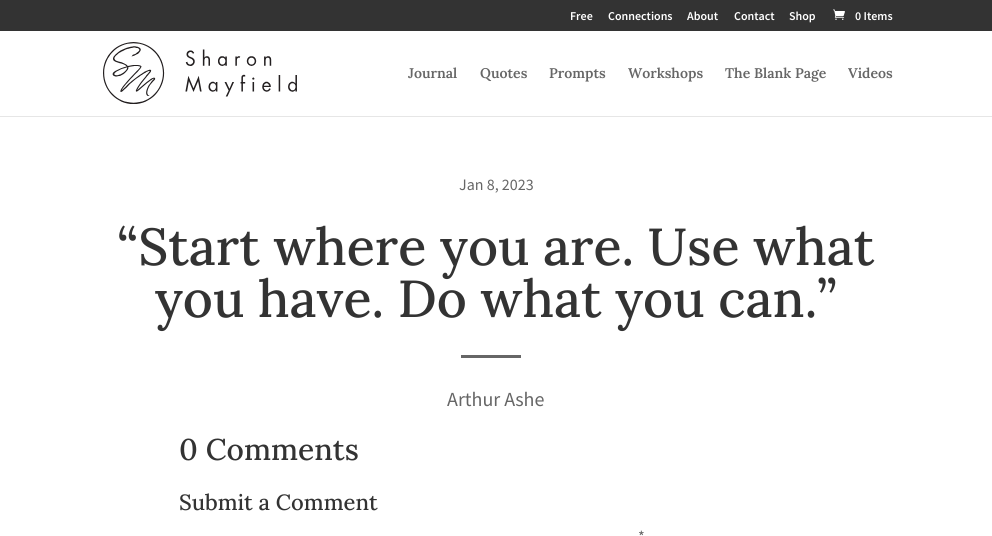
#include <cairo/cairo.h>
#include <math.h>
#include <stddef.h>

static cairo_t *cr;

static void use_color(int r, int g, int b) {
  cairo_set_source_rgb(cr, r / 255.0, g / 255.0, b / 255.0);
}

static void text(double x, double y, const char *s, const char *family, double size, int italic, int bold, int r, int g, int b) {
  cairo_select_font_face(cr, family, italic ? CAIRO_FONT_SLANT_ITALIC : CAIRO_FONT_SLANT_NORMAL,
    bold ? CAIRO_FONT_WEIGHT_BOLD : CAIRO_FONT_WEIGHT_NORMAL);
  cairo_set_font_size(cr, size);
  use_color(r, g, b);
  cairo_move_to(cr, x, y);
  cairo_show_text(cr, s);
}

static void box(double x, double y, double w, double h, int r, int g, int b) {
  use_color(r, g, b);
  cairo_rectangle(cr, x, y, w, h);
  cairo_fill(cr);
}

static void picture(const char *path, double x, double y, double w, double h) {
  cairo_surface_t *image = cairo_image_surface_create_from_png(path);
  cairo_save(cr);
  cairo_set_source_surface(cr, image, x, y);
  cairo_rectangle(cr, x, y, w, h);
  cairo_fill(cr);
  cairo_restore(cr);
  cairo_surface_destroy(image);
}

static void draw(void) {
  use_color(255, 255, 255);
  cairo_paint(cr);
  box(0, 0, 992, 31, 51, 51, 51);
  picture("img_01.png", 833, 9, 12, 11);
  box(0, 116, 992, 1, 230, 230, 230);
  picture("img_02.png", 103, 42, 194, 62);
  box(461, 355, 60, 3, 102, 102, 102);
  text(570, 20, "Free", "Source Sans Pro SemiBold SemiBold", 12, 0, 0, 255, 255, 255);
  text(608, 20, "Connections", "Source Sans Pro SemiBold SemiBold", 12, 0, 0, 255, 255, 255);
  text(687, 20, "About", "Source Sans Pro SemiBold SemiBold", 12, 0, 0, 255, 255, 255);
  text(734, 20, "Contact", "Source Sans Pro SemiBold SemiBold", 12, 0, 0, 255, 255, 255);
  text(789, 20, "Shop", "Source Sans Pro SemiBold SemiBold", 12, 0, 0, 255, 255, 255);
  text(855, 20, "0 Items", "Source Sans Pro SemiBold SemiBold", 12, 0, 0, 255, 255, 255);
  text(408, 78, "Journal", "Lora SemiBold", 14, 0, 0, 102, 102, 102);
  text(480, 78, "Quotes", "Lora SemiBold", 14, 0, 0, 102, 102, 102);
  text(549, 78, "Prompts", "Lora SemiBold", 14, 0, 0, 102, 102, 102);
  text(628, 78, "Workshops", "Lora SemiBold", 14, 0, 0, 102, 102, 102);
  text(725, 78, "The Blank Page", "Lora SemiBold", 14, 0, 0, 102, 102, 102);
  text(848, 78, "Videos", "Lora SemiBold", 14, 0, 0, 102, 102, 102);
  text(459, 190, "Jan 8, 2023", "Source Sans Pro", 16, 0, 0, 102, 102, 102);
  text(117, 265, "“Start where you are. Use what", "Lora Medium", 52, 0, 0, 51, 51, 51);
  text(155, 317, "you have. Do what you can.”", "Lora Medium", 52, 0, 0, 51, 51, 51);
  text(447, 406, "Arthur Ashe", "Source Sans Pro", 20, 0, 0, 102, 102, 102);
  text(179, 460, "0 Comments", "Lora Medium", 30, 0, 0, 51, 51, 51);
  text(179, 510, "Submit a Comment", "Lora Medium", 22, 0, 0, 51, 51, 51);
  text(638, 542, "*", "Source Sans Pro", 16, 0, 0, 102, 102, 102);
}

int main(void) {
  cairo_surface_t *surface = cairo_image_surface_create(CAIRO_FORMAT_RGB24, 992, 536);
  cr = cairo_create(surface);
  cairo_font_options_t *options = cairo_font_options_create();
  cairo_font_options_set_hint_metrics(options, CAIRO_HINT_METRICS_OFF);
  cairo_font_options_set_hint_style(options, CAIRO_HINT_STYLE_NONE);
  cairo_set_font_options(cr, options);
  cairo_set_miter_limit(cr, 4);
  draw();
  cairo_surface_write_to_png(surface, "out.png");
  cairo_font_options_destroy(options);
  cairo_destroy(cr);
  cairo_surface_destroy(surface);
  return 0;
}
